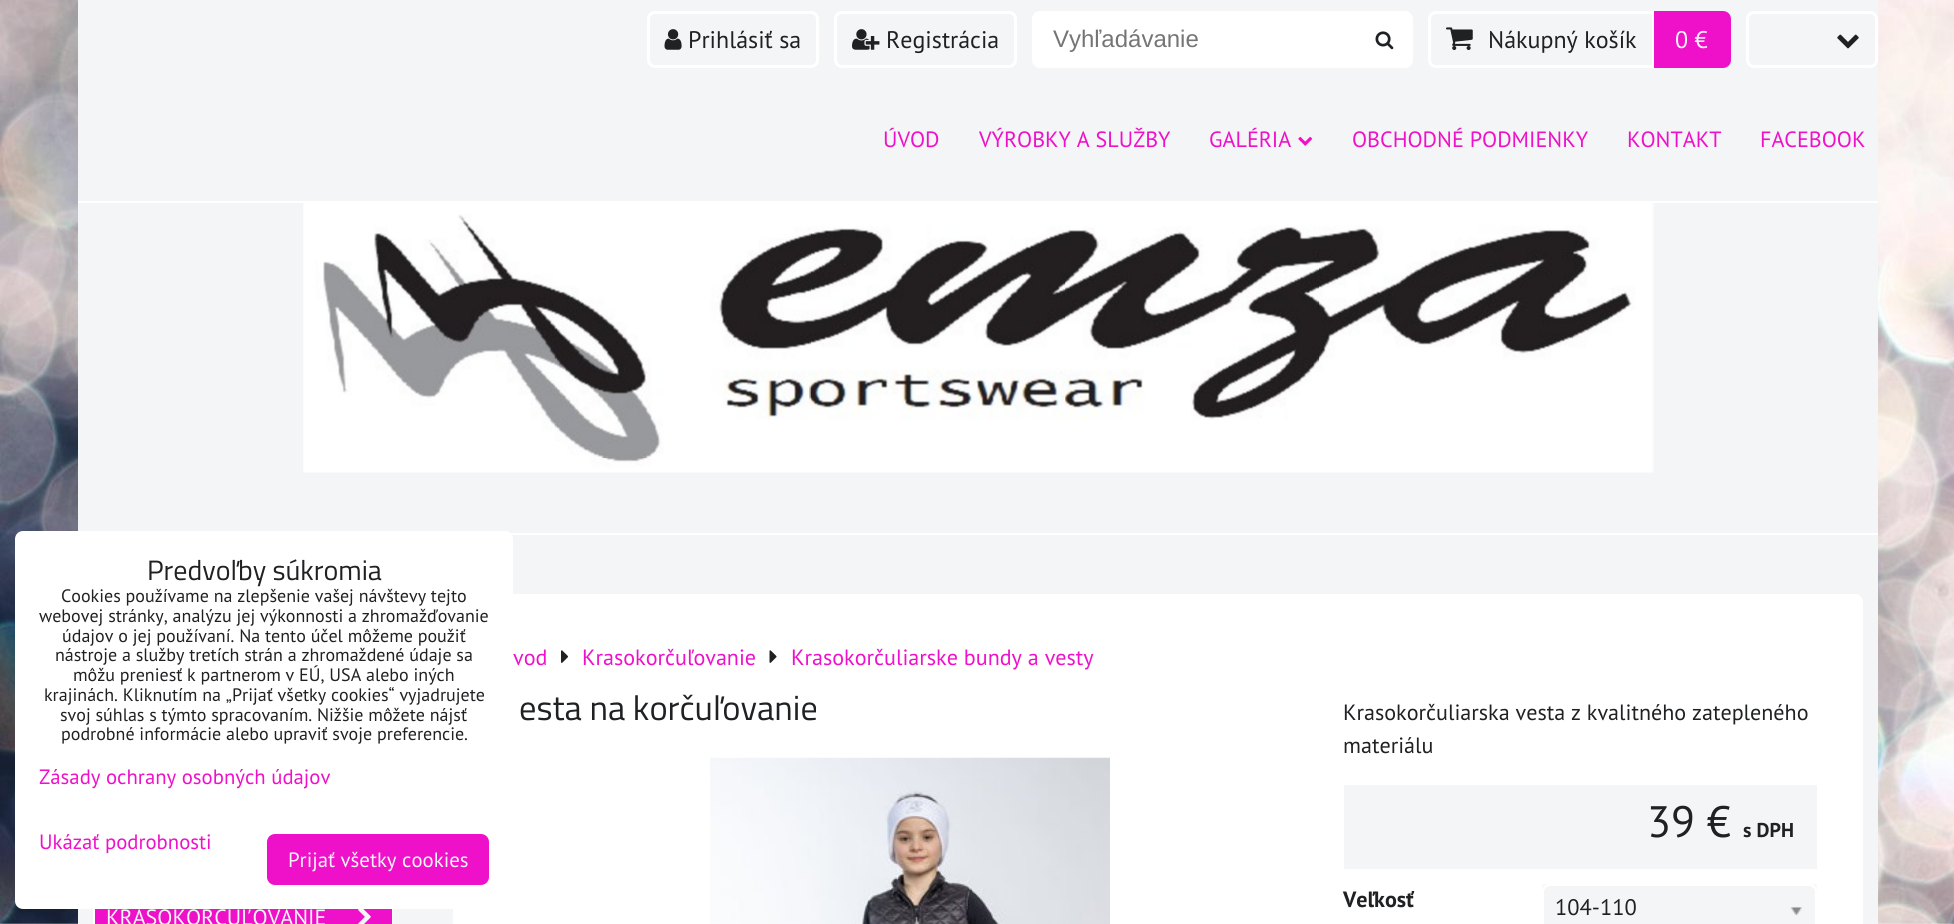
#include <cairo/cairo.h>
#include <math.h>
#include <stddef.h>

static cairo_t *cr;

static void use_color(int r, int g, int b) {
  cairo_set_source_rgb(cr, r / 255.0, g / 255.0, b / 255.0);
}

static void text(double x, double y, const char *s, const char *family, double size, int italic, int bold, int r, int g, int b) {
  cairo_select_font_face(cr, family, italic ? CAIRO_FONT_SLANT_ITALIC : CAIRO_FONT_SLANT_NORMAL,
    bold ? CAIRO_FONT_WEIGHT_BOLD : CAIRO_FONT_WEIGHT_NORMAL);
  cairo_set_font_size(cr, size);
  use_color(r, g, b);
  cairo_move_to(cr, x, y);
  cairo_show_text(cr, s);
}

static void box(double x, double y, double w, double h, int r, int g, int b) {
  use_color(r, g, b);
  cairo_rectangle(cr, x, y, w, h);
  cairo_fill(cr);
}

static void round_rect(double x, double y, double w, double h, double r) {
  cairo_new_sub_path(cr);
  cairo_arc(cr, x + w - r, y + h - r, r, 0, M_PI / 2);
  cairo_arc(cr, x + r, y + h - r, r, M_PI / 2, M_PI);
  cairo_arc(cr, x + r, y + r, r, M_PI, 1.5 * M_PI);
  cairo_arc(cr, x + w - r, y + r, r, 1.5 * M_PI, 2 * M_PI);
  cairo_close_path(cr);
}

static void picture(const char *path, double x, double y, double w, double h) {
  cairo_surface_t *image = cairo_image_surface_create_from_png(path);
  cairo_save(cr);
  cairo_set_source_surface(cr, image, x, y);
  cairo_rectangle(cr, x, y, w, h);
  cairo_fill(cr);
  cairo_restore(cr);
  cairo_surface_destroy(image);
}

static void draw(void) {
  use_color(255, 255, 255);
  cairo_paint(cr);
  picture("img_01.png", 0, 0, 1954, 924);
  box(78, 0, 1800, 924, 244, 245, 247);
  round_rect(648.5, 12.5, 169, 54, 6.5);
  use_color(255, 255, 255);
  cairo_set_line_width(cr, 3);
  cairo_stroke(cr);
  picture("img_02.png", 664, 29, 18, 21);
  round_rect(835.5, 12.5, 180, 54, 6.5);
  cairo_stroke(cr);
  picture("img_03.png", 852, 29, 28, 21);
  round_rect(1033.5, 12.5, 378, 54, 6.5);
  cairo_fill_preserve(cr);
  cairo_stroke(cr);
  picture("img_04.png", 1375, 31, 19, 19);
  round_rect(1429.5, 12.5, 300, 54, 6.5);
  cairo_stroke(cr);
  picture("img_05.png", 1446, 27, 27, 23);
  use_color(238, 17, 201);
  cairo_new_path(cr);
  cairo_move_to(cr, 1652, 11);
  cairo_line_to(cr, 1723, 11);
  cairo_curve_to(cr, 1727.5, 11, 1731, 14.5, 1731, 19);
  cairo_line_to(cr, 1731, 60);
  cairo_curve_to(cr, 1731, 64.5, 1727.5, 68, 1723, 68);
  cairo_line_to(cr, 1652, 68);
  cairo_close_path(cr);
  cairo_fill(cr);
  box(1652, 11, 2, 57, 255, 255, 255);
  round_rect(1747.5, 12.5, 129, 54, 6.5);
  cairo_stroke(cr);
  picture("img_06.png", 1837, 34, 22, 15);
  picture("img_07.png", 1298, 136, 15, 10);
  box(78, 201, 1800, 2, 255, 255, 255);
  box(510, 533, 1368, 2, 255, 255, 255);
  picture("img_08.png", 303, 203, 1351, 270);
  cairo_rectangle(cr, 94, 595, 298, 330);
  cairo_set_line_width(cr, 2);
  cairo_stroke(cr);
  box(95, 909, 297, 15, 238, 17, 201);
  picture("img_09.png", 358, 909, 13, 15);
  use_color(255, 255, 255);
  round_rect(454, 595, 1408, 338, 7);
  cairo_fill_preserve(cr);
  cairo_stroke(cr);
  picture("img_10.png", 561, 650, 8, 13);
  picture("img_11.png", 769, 650, 8, 13);
  picture("img_12.png", 710, 757, 400, 167);
  box(1344, 785, 473, 84, 244, 245, 247);
  box(1542, 884, 275, 8, 249, 249, 249);
  use_color(244, 245, 247);
  round_rect(1543, 885, 273, 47, 7);
  cairo_fill_preserve(cr);
  use_color(255, 255, 255);
  cairo_stroke(cr);
  picture("img_13.png", 1790, 907, 12, 9);
  text(688, 48, "Prihlásiť sa", "PT Sans", 24, 0, 0, 32, 33, 35);
  text(886, 48, "Registrácia", "PT Sans", 24, 0, 0, 32, 33, 35);
  text(1053, 47, "Vyhľadávanie", "Liberation Sans", 24, 0, 0, 117, 117, 117);
  text(1488, 48, "Nákupný košík", "PT Sans", 24, 0, 0, 32, 33, 35);
  text(1675, 48, "0 €", "PT Sans", 24, 0, 0, 244, 245, 247);
  text(883, 147, "ÚVOD", "PT Sans", 22.1, 0, 0, 238, 17, 201);
  text(979, 147, "VÝROBKY A SLUŽBY", "PT Sans", 22.1, 0, 0, 238, 17, 201);
  text(1209, 147, "GALÉRIA", "PT Sans", 22.1, 0, 0, 238, 17, 201);
  text(1352, 147, "OBCHODNÉ PODMIENKY", "PT Sans", 22.1, 0, 0, 238, 17, 201);
  text(1627, 147, "KONTAKT", "PT Sans", 22.1, 0, 0, 238, 17, 201);
  text(1760, 147, "FACEBOOK", "PT Sans", 22.1, 0, 0, 238, 17, 201);
  text(106, 925, "KRASOKORČUĽOVANIE", "PT Sans", 22.1, 0, 0, 244, 245, 247);
  text(513, 665, "vod", "PT Sans", 22.1, 0, 0, 238, 17, 201);
  text(582, 665, "Krasokorčuľovanie", "PT Sans", 22.1, 0, 0, 238, 17, 201);
  text(791, 665, "Krasokorčuliarske bundy a vesty", "PT Sans", 22.1, 0, 0, 238, 17, 201);
  text(519, 720, "esta na korčuľovanie", "Titillium Web", 34.5, 0, 0, 32, 33, 35);
  text(1343, 720, "Krasokorčuliarska vesta z kvalitného zatepleného", "PT Sans", 22.1, 0, 0, 32, 33, 35);
  text(1343, 753, "materiálu", "PT Sans", 22.1, 0, 0, 32, 33, 35);
  text(1647, 837, "39 €", "PT Sans", 44, 0, 0, 32, 33, 35);
  text(1743, 837, "s DPH", "PT Sans", 20, 0, 1, 32, 33, 35);
  text(1343, 907, "Veľkosť", "PT Sans", 22.1, 0, 1, 32, 33, 35);
  text(1555, 915, "104-110", "PT Sans", 22.5, 0, 0, 32, 33, 35);
  use_color(255, 255, 255);
  round_rect(16, 532, 496, 376, 7);
  cairo_fill_preserve(cr);
  cairo_stroke(cr);
  text(147, 580, "Predvoľby súkromia", "Titillium Web", 28, 0, 0, 32, 33, 35);
  text(61, 602, "Cookies používame na zlepšenie vašej návštevy tejto", "PT Sans", 18, 0, 0, 32, 33, 35);
  text(39, 622, "webovej stránky, analýzu jej výkonnosti a zhromažďovanie", "PT Sans", 18, 0, 0, 32, 33, 35);
  text(62, 642, "údajov o jej používaní. Na tento účel môžeme použiť", "PT Sans", 18, 0, 0, 32, 33, 35);
  text(55, 661, "nástroje a služby tretích strán a zhromaždené údaje sa", "PT Sans", 18, 0, 0, 32, 33, 35);
  text(73, 681, "môžu preniesť k partnerom v EÚ, USA alebo iných", "PT Sans", 18, 0, 0, 32, 33, 35);
  text(44, 701, "krajinách. Kliknutím na „Prijať všetky cookies“ vyjadrujete", "PT Sans", 18, 0, 0, 32, 33, 35);
  text(60, 721, "svoj súhlas s týmto spracovaním. Nižšie môžete nájsť", "PT Sans", 18, 0, 0, 32, 33, 35);
  text(61, 740, "podrobné informácie alebo upraviť svoje preferencie.", "PT Sans", 18, 0, 0, 32, 33, 35);
  text(39, 784, "Zásady ochrany osobných údajov", "PT Sans", 20.75, 0, 0, 238, 17, 201);
  text(39, 849, "Ukázať podrobnosti", "PT Sans", 20.75, 0, 0, 238, 17, 201);
  round_rect(268, 835, 220, 49, 7);
  cairo_fill_preserve(cr);
  cairo_stroke(cr);
  text(288, 867, "Prijať všetky cookies", "PT Sans", 20.75, 0, 0, 244, 245, 247);
}

int main(void) {
  cairo_surface_t *surface = cairo_image_surface_create(CAIRO_FORMAT_RGB24, 1954, 924);
  cr = cairo_create(surface);
  cairo_font_options_t *options = cairo_font_options_create();
  cairo_font_options_set_hint_metrics(options, CAIRO_HINT_METRICS_OFF);
  cairo_font_options_set_hint_style(options, CAIRO_HINT_STYLE_NONE);
  cairo_set_font_options(cr, options);
  cairo_set_miter_limit(cr, 4);
  draw();
  cairo_surface_write_to_png(surface, "out.png");
  cairo_font_options_destroy(options);
  cairo_destroy(cr);
  cairo_surface_destroy(surface);
  return 0;
}
